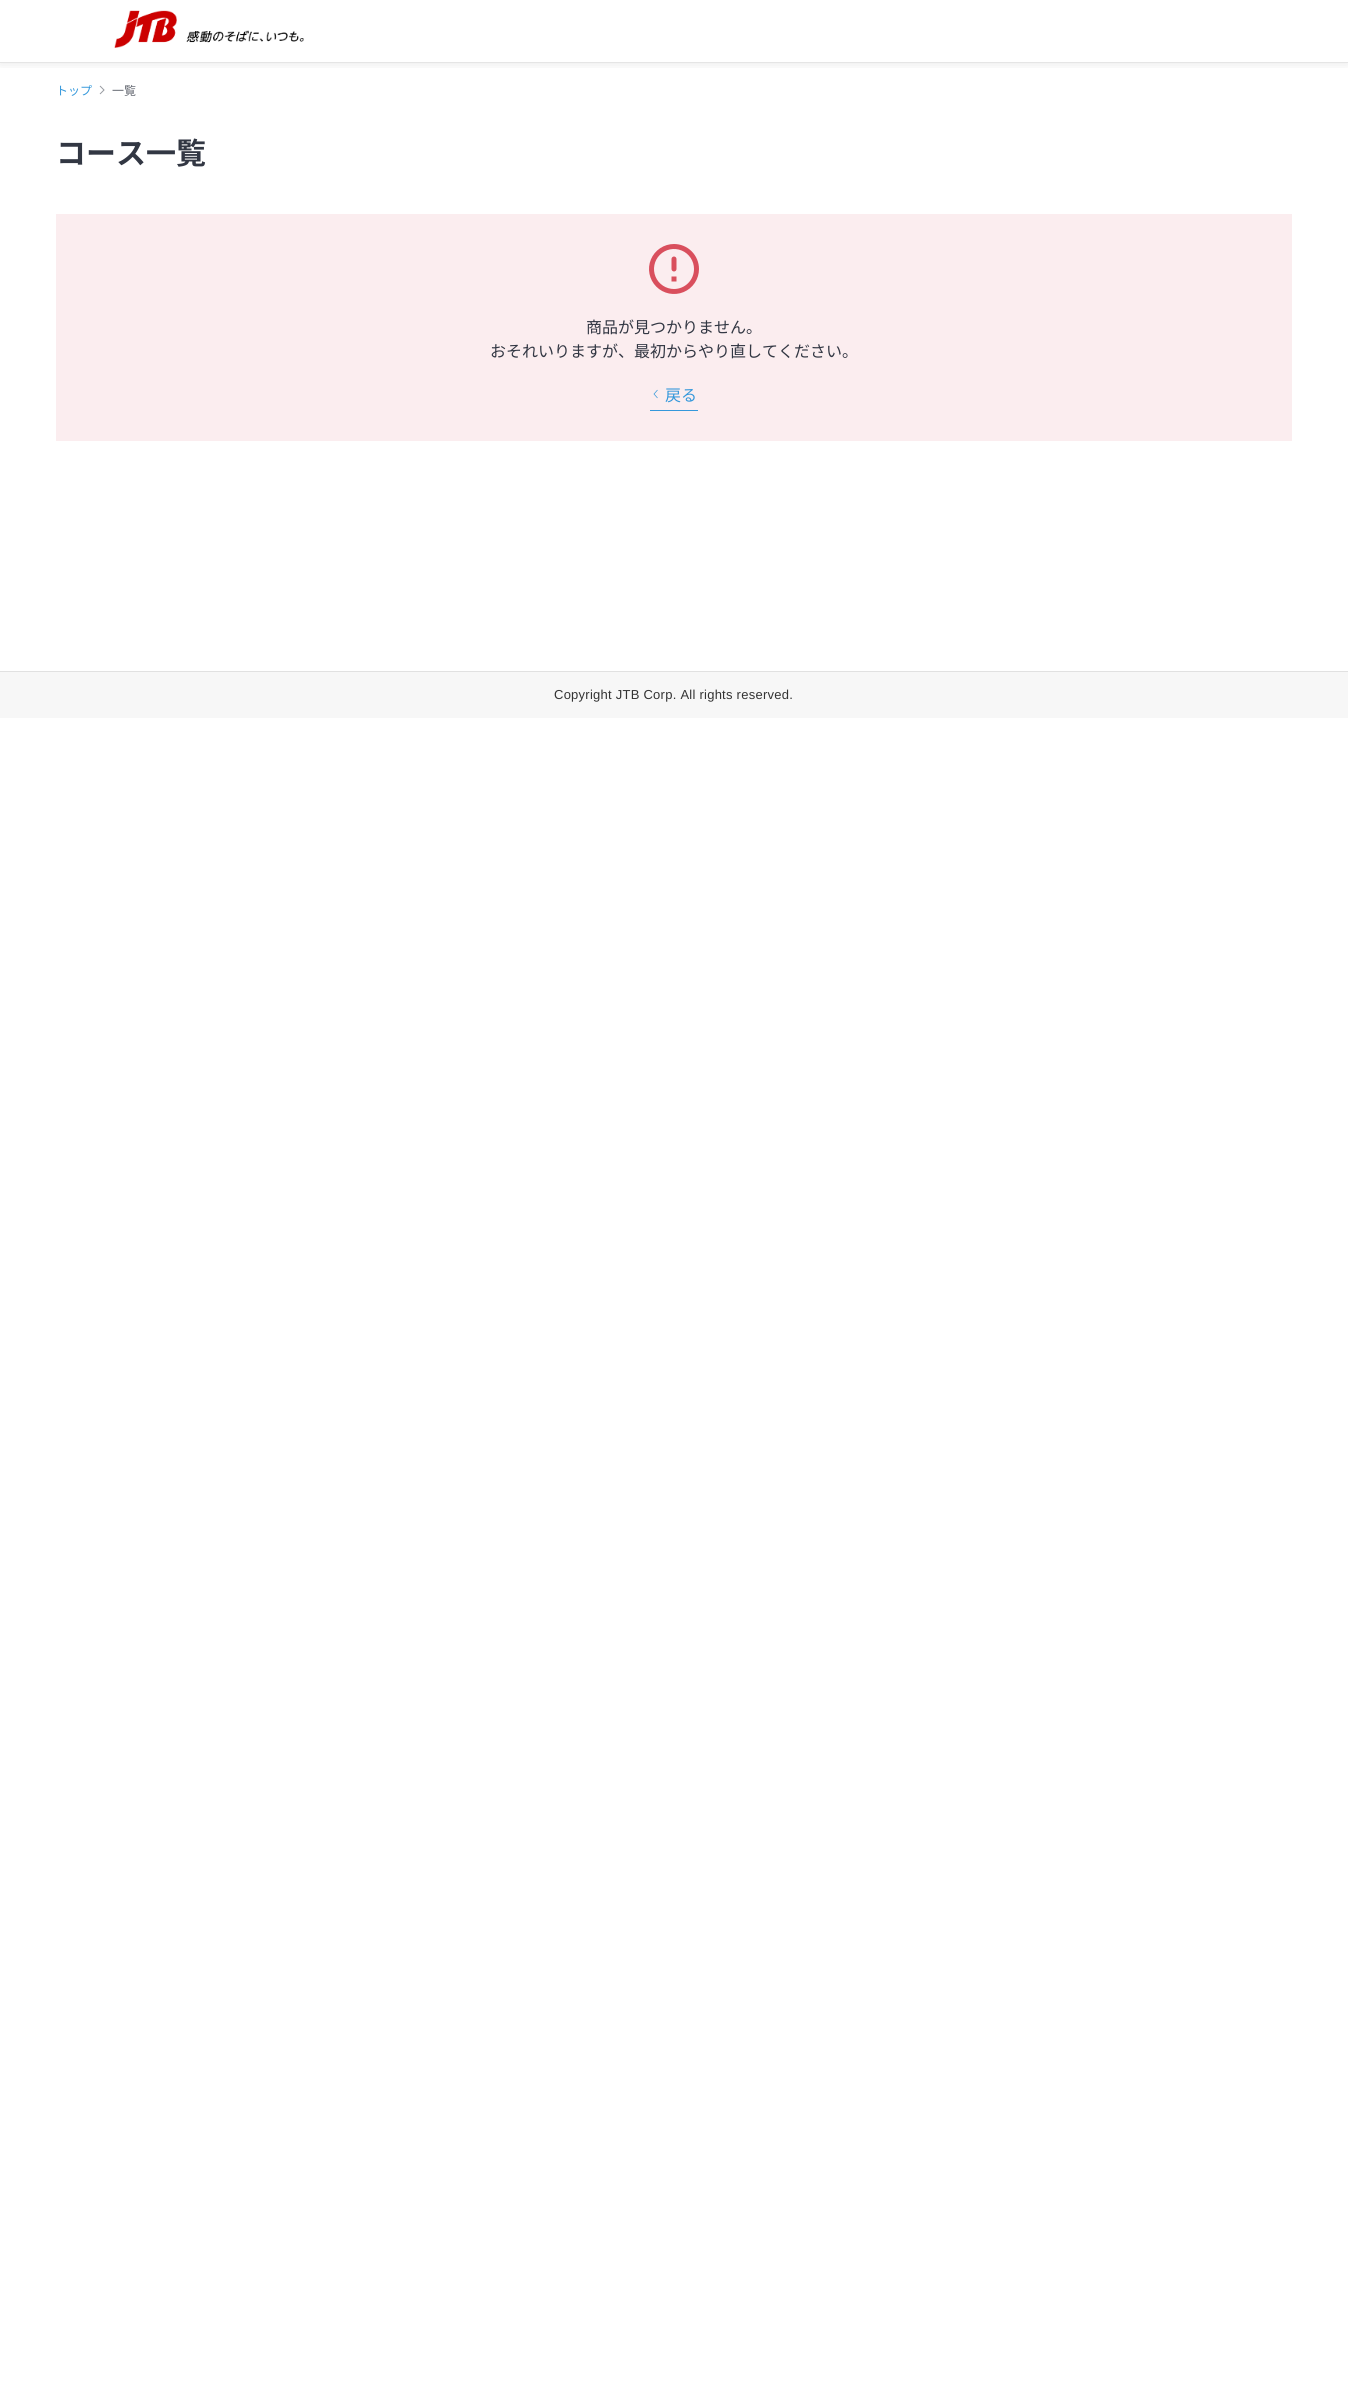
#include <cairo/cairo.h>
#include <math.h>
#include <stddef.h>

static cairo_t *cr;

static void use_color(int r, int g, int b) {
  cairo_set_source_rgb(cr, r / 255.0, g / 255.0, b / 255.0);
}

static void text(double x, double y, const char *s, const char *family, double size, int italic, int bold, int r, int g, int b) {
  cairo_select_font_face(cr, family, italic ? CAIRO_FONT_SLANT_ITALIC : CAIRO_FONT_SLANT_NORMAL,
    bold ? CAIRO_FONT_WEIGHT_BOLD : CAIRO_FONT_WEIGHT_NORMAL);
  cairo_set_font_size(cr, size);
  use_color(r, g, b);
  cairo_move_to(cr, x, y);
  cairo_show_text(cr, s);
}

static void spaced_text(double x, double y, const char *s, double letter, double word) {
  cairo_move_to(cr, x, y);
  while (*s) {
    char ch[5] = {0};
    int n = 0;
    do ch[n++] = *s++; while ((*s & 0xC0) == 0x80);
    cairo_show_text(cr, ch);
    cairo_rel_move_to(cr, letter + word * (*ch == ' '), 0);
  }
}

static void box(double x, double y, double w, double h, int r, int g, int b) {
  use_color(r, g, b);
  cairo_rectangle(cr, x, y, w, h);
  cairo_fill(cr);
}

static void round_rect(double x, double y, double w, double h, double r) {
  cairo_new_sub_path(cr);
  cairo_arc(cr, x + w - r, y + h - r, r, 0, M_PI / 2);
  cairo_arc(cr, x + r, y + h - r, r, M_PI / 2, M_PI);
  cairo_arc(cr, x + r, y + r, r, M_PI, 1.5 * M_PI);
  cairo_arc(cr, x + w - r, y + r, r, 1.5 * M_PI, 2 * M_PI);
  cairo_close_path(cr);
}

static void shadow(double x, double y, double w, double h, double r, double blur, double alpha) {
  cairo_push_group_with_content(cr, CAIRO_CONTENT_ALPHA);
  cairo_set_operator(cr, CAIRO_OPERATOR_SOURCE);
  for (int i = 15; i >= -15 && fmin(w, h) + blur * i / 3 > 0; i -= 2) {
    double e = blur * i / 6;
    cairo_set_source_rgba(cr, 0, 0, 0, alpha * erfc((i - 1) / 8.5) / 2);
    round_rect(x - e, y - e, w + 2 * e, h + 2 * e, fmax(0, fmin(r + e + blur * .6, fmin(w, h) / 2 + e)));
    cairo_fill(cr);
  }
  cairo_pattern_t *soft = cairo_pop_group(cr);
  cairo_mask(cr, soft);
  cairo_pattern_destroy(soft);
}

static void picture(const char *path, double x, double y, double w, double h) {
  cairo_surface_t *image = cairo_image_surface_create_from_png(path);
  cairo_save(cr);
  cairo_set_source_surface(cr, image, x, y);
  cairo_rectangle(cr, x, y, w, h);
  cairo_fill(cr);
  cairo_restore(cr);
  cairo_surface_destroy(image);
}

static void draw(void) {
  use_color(255, 255, 255);
  cairo_paint(cr);
  cairo_save(cr);
  cairo_rectangle(cr, 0, 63, 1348, 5);
  cairo_clip(cr);
  use_color(0, 0, 0);
  shadow(0, 0, 1348, 63, 0, 6, 0.1);
  cairo_restore(cr);
  box(0, 62, 1348, 1, 229, 229, 229);
  picture("img_01.png", 114, 10, 190, 38);
  cairo_new_path(cr);
  cairo_move_to(cr, 100, 86);
  cairo_line_to(cr, 104, 90);
  cairo_line_to(cr, 100, 94);
  use_color(152, 155, 161);
  cairo_set_line_width(cr, 1);
  cairo_stroke(cr);
  box(56, 214, 1236, 227, 251, 237, 239);
  picture("img_02.png", 649, 244, 50, 50);
  cairo_new_path(cr);
  cairo_move_to(cr, 657.5, 398);
  cairo_line_to(cr, 654, 394);
  cairo_line_to(cr, 657.5, 390);
  use_color(52, 152, 219);
  cairo_set_line_width(cr, 0.7);
  cairo_stroke(cr);
  box(650, 410, 48, 1, 52, 152, 219);
  box(0, 672, 1348, 46, 247, 247, 247);
  box(0, 671, 1348, 1, 225, 225, 225);
  text(56, 95, "トップ", "Noto Sans JP", 12, 0, 0, 52, 152, 219);
  text(112, 95, "一覧", "Noto Sans JP", 12, 0, 0, 101, 105, 114);
  text(56, 164, "コース一覧", "Noto Sans JP", 30, 0, 1, 50, 55, 67);
  text(586, 333, "商品が見つかりません。", "Noto Sans JP", 16, 0, 0, 50, 55, 67);
  text(490, 357, "おそれいりますが、最初からやり直してください。", "Noto Sans JP", 16, 0, 0, 50, 55, 67);
  text(665, 401, "戻る", "Noto Sans JP", 16, 0, 0, 52, 152, 219);
  cairo_select_font_face(cr, "Liberation Sans", CAIRO_FONT_SLANT_NORMAL, CAIRO_FONT_WEIGHT_NORMAL);
  cairo_set_font_size(cr, 13);
  use_color(51, 51, 51);
  spaced_text(554, 699, "Copyright JTB Corp. All rights reserved.", 0.25, 0);
}

int main(void) {
  cairo_surface_t *surface = cairo_image_surface_create(CAIRO_FORMAT_RGB24, 1348, 2395);
  cr = cairo_create(surface);
  cairo_font_options_t *options = cairo_font_options_create();
  cairo_font_options_set_hint_metrics(options, CAIRO_HINT_METRICS_OFF);
  cairo_font_options_set_hint_style(options, CAIRO_HINT_STYLE_NONE);
  cairo_set_font_options(cr, options);
  cairo_set_miter_limit(cr, 4);
  draw();
  cairo_surface_write_to_png(surface, "out.png");
  cairo_font_options_destroy(options);
  cairo_destroy(cr);
  cairo_surface_destroy(surface);
  return 0;
}
